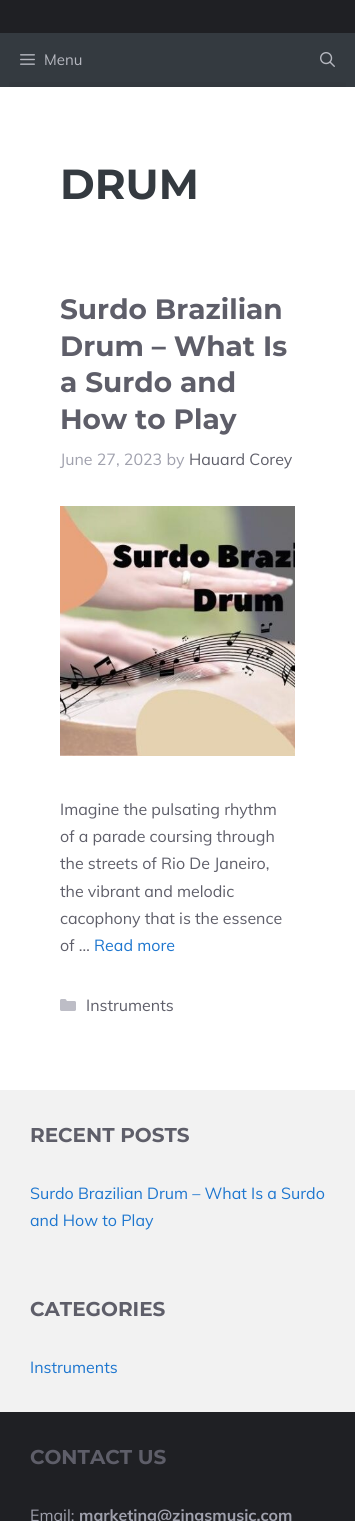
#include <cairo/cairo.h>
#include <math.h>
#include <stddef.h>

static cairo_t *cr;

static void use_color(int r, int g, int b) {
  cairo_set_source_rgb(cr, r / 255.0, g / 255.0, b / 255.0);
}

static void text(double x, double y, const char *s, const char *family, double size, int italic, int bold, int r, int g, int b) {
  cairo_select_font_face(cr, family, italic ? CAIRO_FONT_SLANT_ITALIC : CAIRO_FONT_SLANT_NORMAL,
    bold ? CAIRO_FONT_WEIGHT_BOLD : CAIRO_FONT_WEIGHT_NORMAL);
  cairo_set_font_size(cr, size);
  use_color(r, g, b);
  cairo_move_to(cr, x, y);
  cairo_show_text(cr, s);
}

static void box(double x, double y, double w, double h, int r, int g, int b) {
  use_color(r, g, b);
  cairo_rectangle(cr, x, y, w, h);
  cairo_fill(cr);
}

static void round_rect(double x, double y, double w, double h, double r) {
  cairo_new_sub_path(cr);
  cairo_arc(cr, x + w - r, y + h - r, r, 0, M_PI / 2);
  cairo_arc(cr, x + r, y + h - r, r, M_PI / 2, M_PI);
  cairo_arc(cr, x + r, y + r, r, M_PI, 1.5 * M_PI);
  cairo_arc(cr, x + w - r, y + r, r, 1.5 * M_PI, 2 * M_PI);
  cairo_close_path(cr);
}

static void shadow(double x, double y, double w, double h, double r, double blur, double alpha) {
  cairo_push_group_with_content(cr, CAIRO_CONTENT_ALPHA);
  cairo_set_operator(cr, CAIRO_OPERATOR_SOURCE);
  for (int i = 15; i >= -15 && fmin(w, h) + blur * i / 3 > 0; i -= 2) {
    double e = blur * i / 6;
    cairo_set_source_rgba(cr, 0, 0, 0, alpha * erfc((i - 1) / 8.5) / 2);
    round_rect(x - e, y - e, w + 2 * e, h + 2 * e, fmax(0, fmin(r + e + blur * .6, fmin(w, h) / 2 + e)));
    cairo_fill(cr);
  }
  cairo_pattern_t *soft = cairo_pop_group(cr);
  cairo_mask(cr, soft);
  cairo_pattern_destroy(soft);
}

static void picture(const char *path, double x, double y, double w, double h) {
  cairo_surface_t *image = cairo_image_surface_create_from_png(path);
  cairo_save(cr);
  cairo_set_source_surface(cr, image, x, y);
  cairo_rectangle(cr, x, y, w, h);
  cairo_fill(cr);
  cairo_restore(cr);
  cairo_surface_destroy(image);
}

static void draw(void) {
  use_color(255, 255, 255);
  cairo_paint(cr);
  box(0, 0, 355, 33, 31, 32, 36);
  box(0, 33, 355, 54, 52, 58, 64);
  picture("img_01.png", 20, 54, 15, 11);
  cairo_save(cr);
  cairo_rectangle(cr, 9, 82, 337, 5);
  cairo_clip(cr);
  use_color(0, 0, 0);
  shadow(10, 97, 335, 1305, 0, 10, 0.3);
  cairo_restore(cr);
  picture("img_02.png", 320, 52, 15, 15);
  picture("img_03.png", 60, 506, 235, 250);
  picture("img_04.png", 60, 999, 16, 12);
  box(0, 1090, 355, 322, 242, 242, 242);
  box(0, 1412, 355, 109, 31, 32, 36);
  text(44, 65, "Menu", "Muli", 15, 0, 0, 181, 183, 191);
  text(60, 199, "DRUM", "Montserrat", 42, 0, 1, 52, 58, 64);
  text(60, 319, "Surdo Brazilian", "Montserrat", 28, 0, 1, 94, 94, 105);
  text(60, 356, "Drum – What Is", "Montserrat", 28, 0, 1, 94, 94, 105);
  text(60, 392, "a Surdo and", "Montserrat", 28, 0, 1, 94, 94, 105);
  text(60, 429, "How to Play", "Montserrat", 28, 0, 1, 94, 94, 105);
  text(60, 465, "June 27, 2023 by", "Muli", 16, 0, 0, 160, 161, 173);
  text(189, 465, "Hauard Corey", "Muli", 16, 0, 0, 94, 94, 105);
  text(60, 815, "Imagine the pulsating rhythm", "Muli", 16, 0, 0, 94, 94, 105);
  text(60, 842, "of a parade coursing through", "Muli", 16, 0, 0, 94, 94, 105);
  text(60, 869, "the streets of Rio De Janeiro,", "Muli", 16, 0, 0, 94, 94, 105);
  text(60, 897, "the vibrant and melodic", "Muli", 16, 0, 0, 94, 94, 105);
  text(60, 924, "cacophony that is the essence", "Muli", 16, 0, 0, 94, 94, 105);
  text(60, 951, "of …", "Muli", 16, 0, 0, 94, 94, 105);
  text(94, 951, "Read more", "Muli", 16, 0, 0, 29, 118, 207);
  text(86, 1011, "Instruments", "Muli", 16, 0, 0, 94, 94, 105);
  text(30, 1142, "RECENT POSTS", "Montserrat", 20, 0, 1, 94, 94, 105);
  text(30, 1199, "Surdo Brazilian Drum – What Is a Surdo", "Muli", 16, 0, 0, 29, 118, 207);
  text(30, 1226, "and How to Play", "Muli", 16, 0, 0, 29, 118, 207);
  text(30, 1316, "CATEGORIES", "Montserrat", 20, 0, 1, 94, 94, 105);
  text(30, 1373, "Instruments", "Muli", 16, 0, 0, 29, 118, 207);
  text(30, 1464, "CONTACT US", "Montserrat", 20, 0, 1, 94, 94, 105);
  text(30, 1521, "Email:", "Muli", 16, 0, 0, 160, 161, 173);
  text(79, 1521, "marketing@zingsmusic.com", "Muli", 16, 0, 1, 160, 161, 173);
}

int main(void) {
  cairo_surface_t *surface = cairo_image_surface_create(CAIRO_FORMAT_RGB24, 355, 1521);
  cr = cairo_create(surface);
  cairo_font_options_t *options = cairo_font_options_create();
  cairo_font_options_set_hint_metrics(options, CAIRO_HINT_METRICS_OFF);
  cairo_font_options_set_hint_style(options, CAIRO_HINT_STYLE_NONE);
  cairo_set_font_options(cr, options);
  cairo_set_miter_limit(cr, 4);
  draw();
  cairo_surface_write_to_png(surface, "out.png");
  cairo_font_options_destroy(options);
  cairo_destroy(cr);
  cairo_surface_destroy(surface);
  return 0;
}
